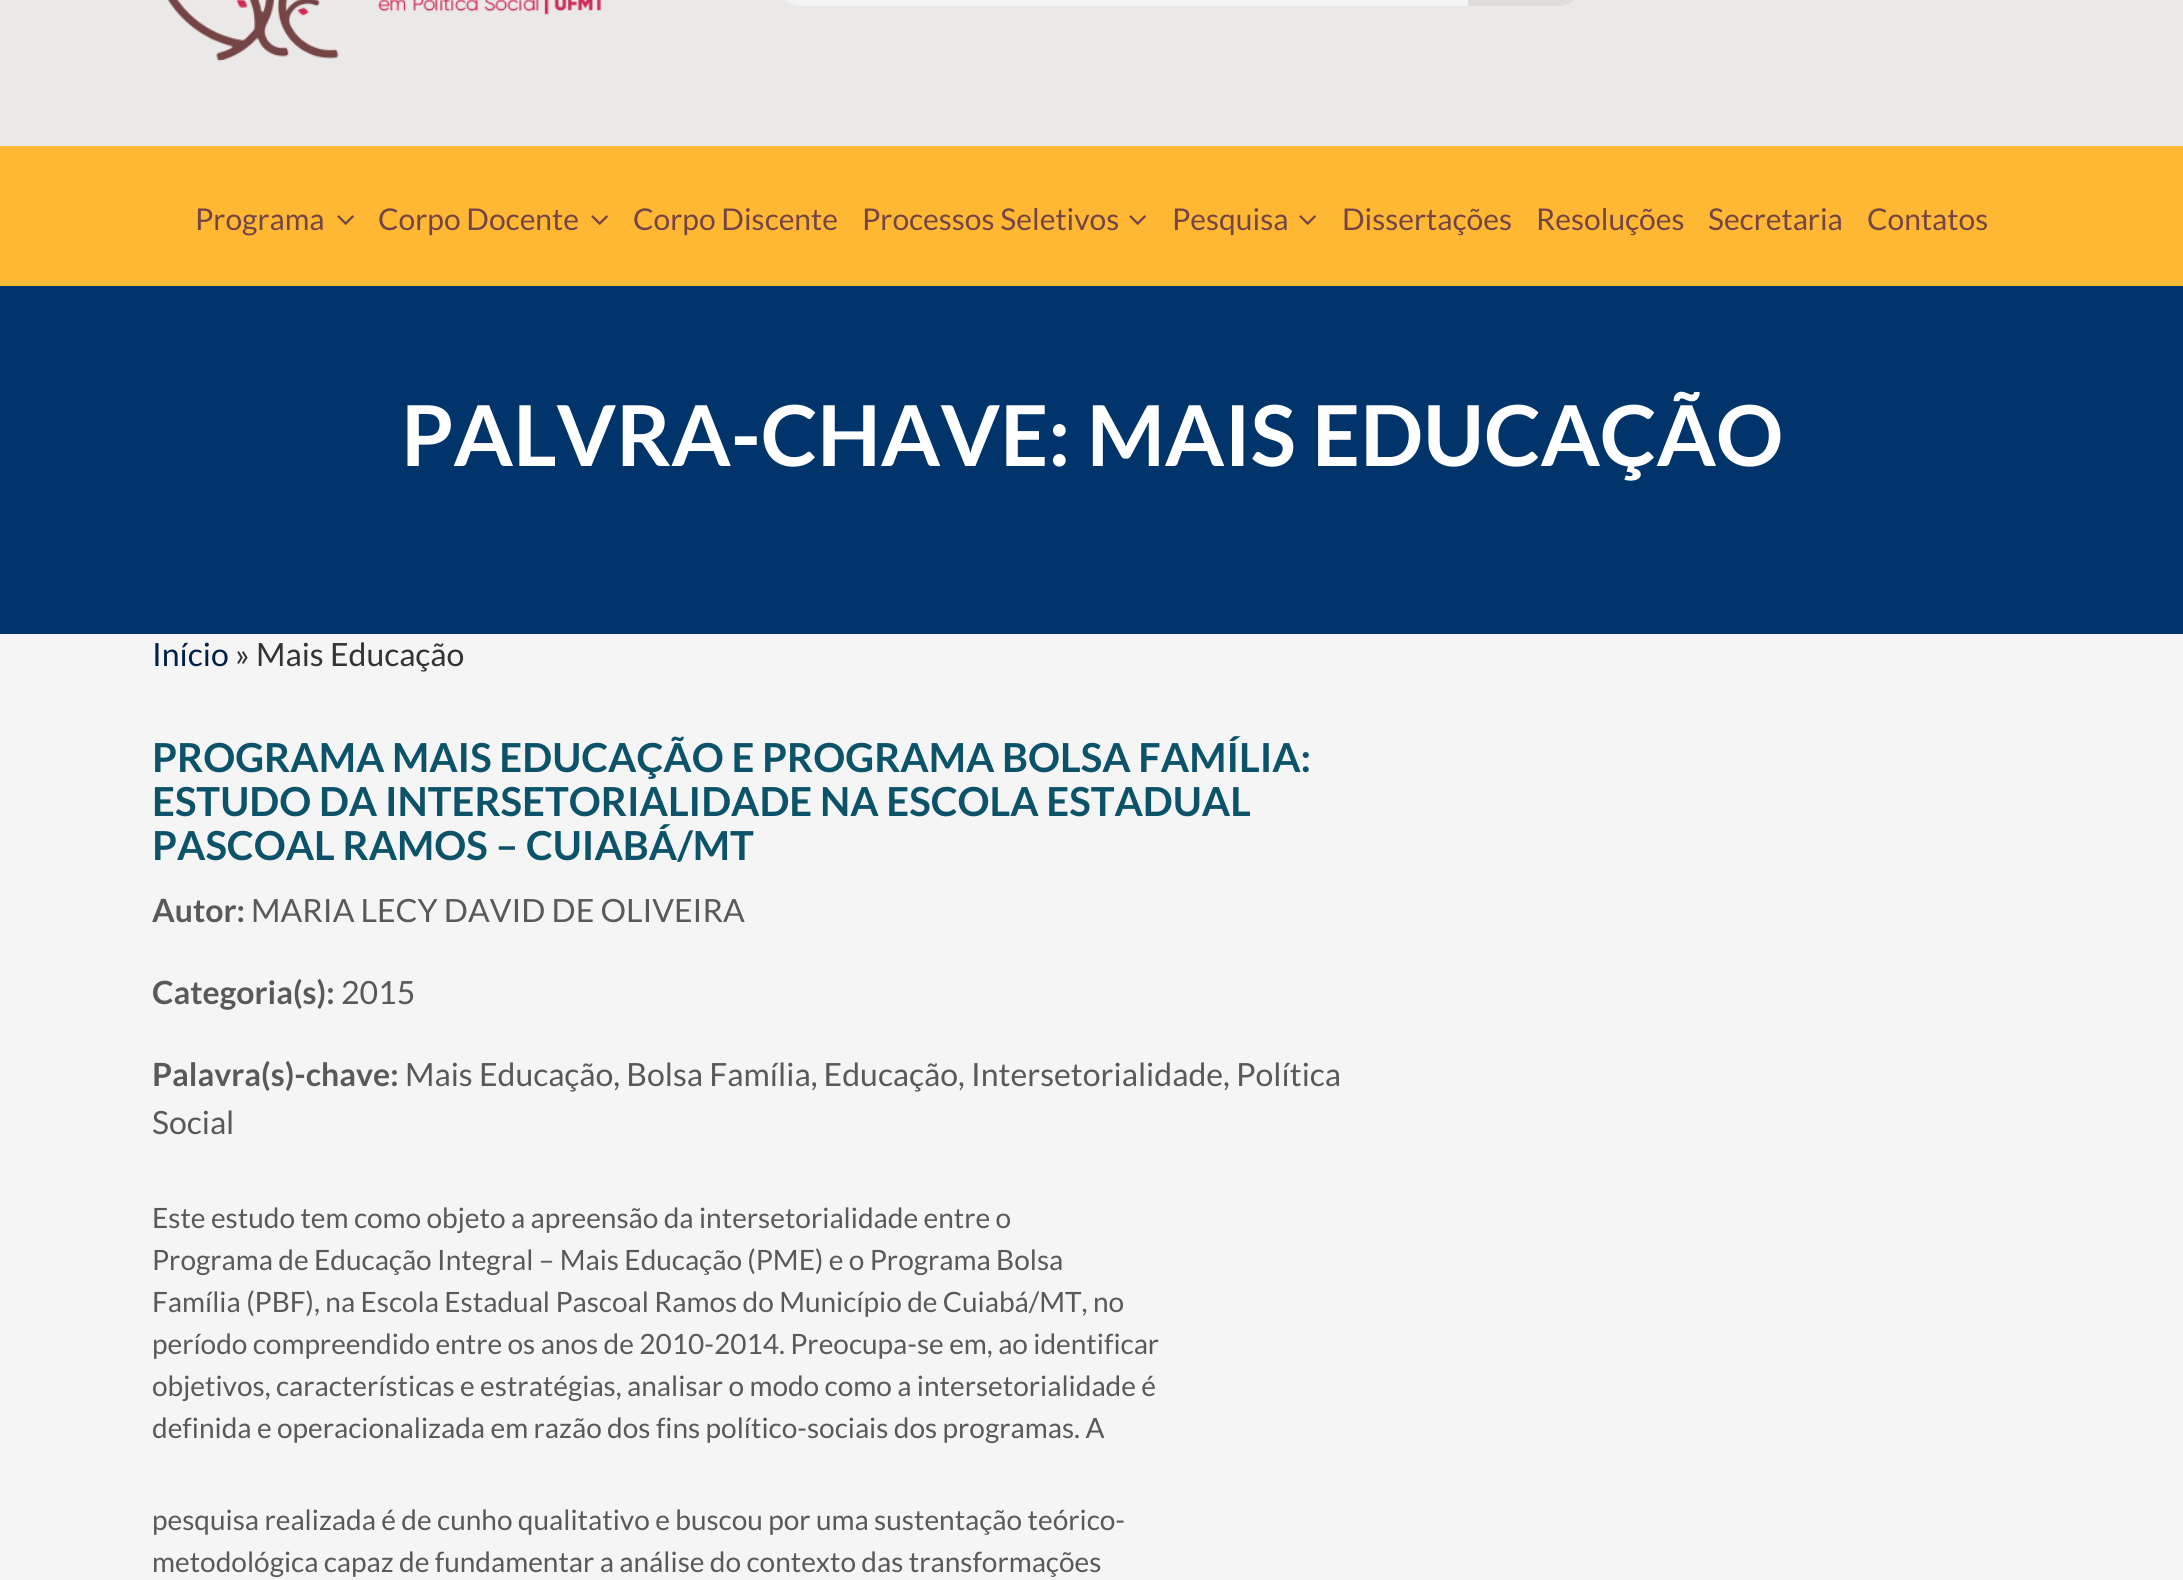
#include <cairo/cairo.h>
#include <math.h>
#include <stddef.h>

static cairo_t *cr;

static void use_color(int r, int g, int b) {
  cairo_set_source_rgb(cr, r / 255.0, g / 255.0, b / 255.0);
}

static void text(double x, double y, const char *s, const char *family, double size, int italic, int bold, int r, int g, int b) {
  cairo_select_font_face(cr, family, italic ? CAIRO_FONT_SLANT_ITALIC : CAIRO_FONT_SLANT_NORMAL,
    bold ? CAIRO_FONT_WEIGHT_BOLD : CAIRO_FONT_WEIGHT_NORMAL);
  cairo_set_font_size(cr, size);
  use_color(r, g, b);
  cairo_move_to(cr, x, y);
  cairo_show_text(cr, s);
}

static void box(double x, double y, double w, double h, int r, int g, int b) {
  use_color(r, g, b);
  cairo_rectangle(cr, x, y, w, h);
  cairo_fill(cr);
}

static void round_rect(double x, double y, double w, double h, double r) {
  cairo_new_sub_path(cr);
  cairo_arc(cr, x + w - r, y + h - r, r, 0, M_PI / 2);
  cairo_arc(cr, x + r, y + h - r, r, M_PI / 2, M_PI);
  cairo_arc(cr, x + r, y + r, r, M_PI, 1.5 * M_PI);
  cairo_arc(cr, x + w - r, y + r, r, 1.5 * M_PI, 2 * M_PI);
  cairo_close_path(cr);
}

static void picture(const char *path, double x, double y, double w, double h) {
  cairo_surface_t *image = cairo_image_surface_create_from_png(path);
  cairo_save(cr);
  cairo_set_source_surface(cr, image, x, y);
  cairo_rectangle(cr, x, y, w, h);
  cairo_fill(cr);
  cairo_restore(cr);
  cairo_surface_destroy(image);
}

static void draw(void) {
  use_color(245, 245, 245);
  cairo_paint(cr);
  box(0, 0, 2183, 146, 235, 232, 232);
  use_color(244, 243, 243);
  round_rect(780, -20, 800, 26, 20);
  cairo_fill(cr);
  use_color(223, 220, 219);
  cairo_new_path(cr);
  cairo_move_to(cr, 1468, -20);
  cairo_line_to(cr, 1560, -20);
  cairo_curve_to(cr, 1571, -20, 1580, -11, 1580, 0);
  cairo_line_to(cr, 1580, -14);
  cairo_curve_to(cr, 1580, -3, 1571, 6, 1560, 6);
  cairo_line_to(cr, 1468, 6);
  cairo_close_path(cr);
  cairo_fill(cr);
  picture("img_01.png", 167, 0, 436, 62);
  box(0, 146, 2183, 140, 255, 184, 51);
  picture("img_02.png", 337, 215, 17, 10);
  picture("img_02.png", 591, 215, 17, 10);
  picture("img_02.png", 1129, 215, 17, 10);
  picture("img_02.png", 1299, 215, 17, 10);
  box(0, 286, 2183, 348, 0, 52, 106);
  text(195, 230, "Programa", "Lato", 30, 0, 0, 117, 69, 70);
  text(378, 230, "Corpo Docente", "Lato", 30, 0, 0, 117, 69, 70);
  text(633, 230, "Corpo Discente", "Lato", 30, 0, 0, 117, 69, 70);
  text(862, 230, "Processos Seletivos", "Lato", 30, 0, 0, 117, 69, 70);
  text(1172, 230, "Pesquisa", "Lato", 30, 0, 0, 117, 69, 70);
  text(1342, 230, "Dissertações", "Lato", 30, 0, 0, 117, 69, 70);
  text(1536, 230, "Resoluções", "Lato", 30, 0, 0, 117, 69, 70);
  text(1708, 230, "Secretaria", "Lato", 30, 0, 0, 117, 69, 70);
  text(1867, 230, "Contatos", "Lato", 30, 0, 0, 117, 69, 70);
  text(401, 466, "PALVRA-CHAVE: MAIS EDUCAÇÃO", "Lato", 84, 0, 1, 255, 255, 255);
  text(152, 666, "Início", "Lato", 32, 0, 0, 0, 33, 71);
  text(235, 666, "» Mais Educação", "Lato", 32, 0, 0, 51, 51, 51);
  text(152, 772, "PROGRAMA MAIS EDUCAÇÃO E PROGRAMA BOLSA FAMÍLIA:", "Lato", 40, 0, 1, 12, 83, 106);
  text(152, 816, "ESTUDO DA INTERSETORIALIDADE NA ESCOLA ESTADUAL", "Lato", 40, 0, 1, 12, 83, 106);
  text(152, 860, "PASCOAL RAMOS – CUIABÁ/MT", "Lato", 40, 0, 1, 12, 83, 106);
  text(152, 922, "Autor:", "Lato", 32, 0, 1, 89, 89, 89);
  text(251, 922, "MARIA LECY DAVID DE OLIVEIRA", "Lato", 32, 0, 0, 89, 89, 89);
  text(152, 1004, "Categoria(s):", "Lato", 32, 0, 1, 89, 89, 89);
  text(341, 1004, "2015", "Lato", 32, 0, 0, 89, 89, 89);
  text(152, 1086, "Palavra(s)-chave:", "Lato", 32, 0, 1, 89, 89, 89);
  text(405, 1086, "Mais Educação, Bolsa Família, Educação, Intersetorialidade, Política", "Lato", 32, 0, 0, 89, 89, 89);
  text(152, 1134, "Social", "Lato", 32, 0, 0, 89, 89, 89);
  text(152, 1228, "Este estudo tem como objeto a apreensão da intersetorialidade entre o", "Lato", 28, 0, 0, 89, 89, 89);
  text(152, 1270, "Programa de Educação Integral – Mais Educação (PME) e o Programa Bolsa", "Lato", 28, 0, 0, 89, 89, 89);
  text(152, 1312, "Família (PBF), na Escola Estadual Pascoal Ramos do Município de Cuiabá/MT, no", "Lato", 28, 0, 0, 89, 89, 89);
  text(152, 1354, "período compreendido entre os anos de 2010-2014. Preocupa-se em, ao identificar", "Lato", 28, 0, 0, 89, 89, 89);
  text(152, 1396, "objetivos, características e estratégias, analisar o modo como a intersetorialidade é", "Lato", 28, 0, 0, 89, 89, 89);
  text(152, 1438, "definida e operacionalizada em razão dos fins político-sociais dos programas. A", "Lato", 28, 0, 0, 89, 89, 89);
  text(152, 1530, "pesquisa realizada é de cunho qualitativo e buscou por uma sustentação teórico-", "Lato", 28, 0, 0, 89, 89, 89);
  text(152, 1572, "metodológica capaz de fundamentar a análise do contexto das transformações", "Lato", 28, 0, 0, 89, 89, 89);
}

int main(void) {
  cairo_surface_t *surface = cairo_image_surface_create(CAIRO_FORMAT_RGB24, 2183, 1580);
  cr = cairo_create(surface);
  cairo_font_options_t *options = cairo_font_options_create();
  cairo_font_options_set_hint_metrics(options, CAIRO_HINT_METRICS_OFF);
  cairo_font_options_set_hint_style(options, CAIRO_HINT_STYLE_NONE);
  cairo_set_font_options(cr, options);
  cairo_set_miter_limit(cr, 4);
  draw();
  cairo_surface_write_to_png(surface, "out.png");
  cairo_font_options_destroy(options);
  cairo_destroy(cr);
  cairo_surface_destroy(surface);
  return 0;
}
